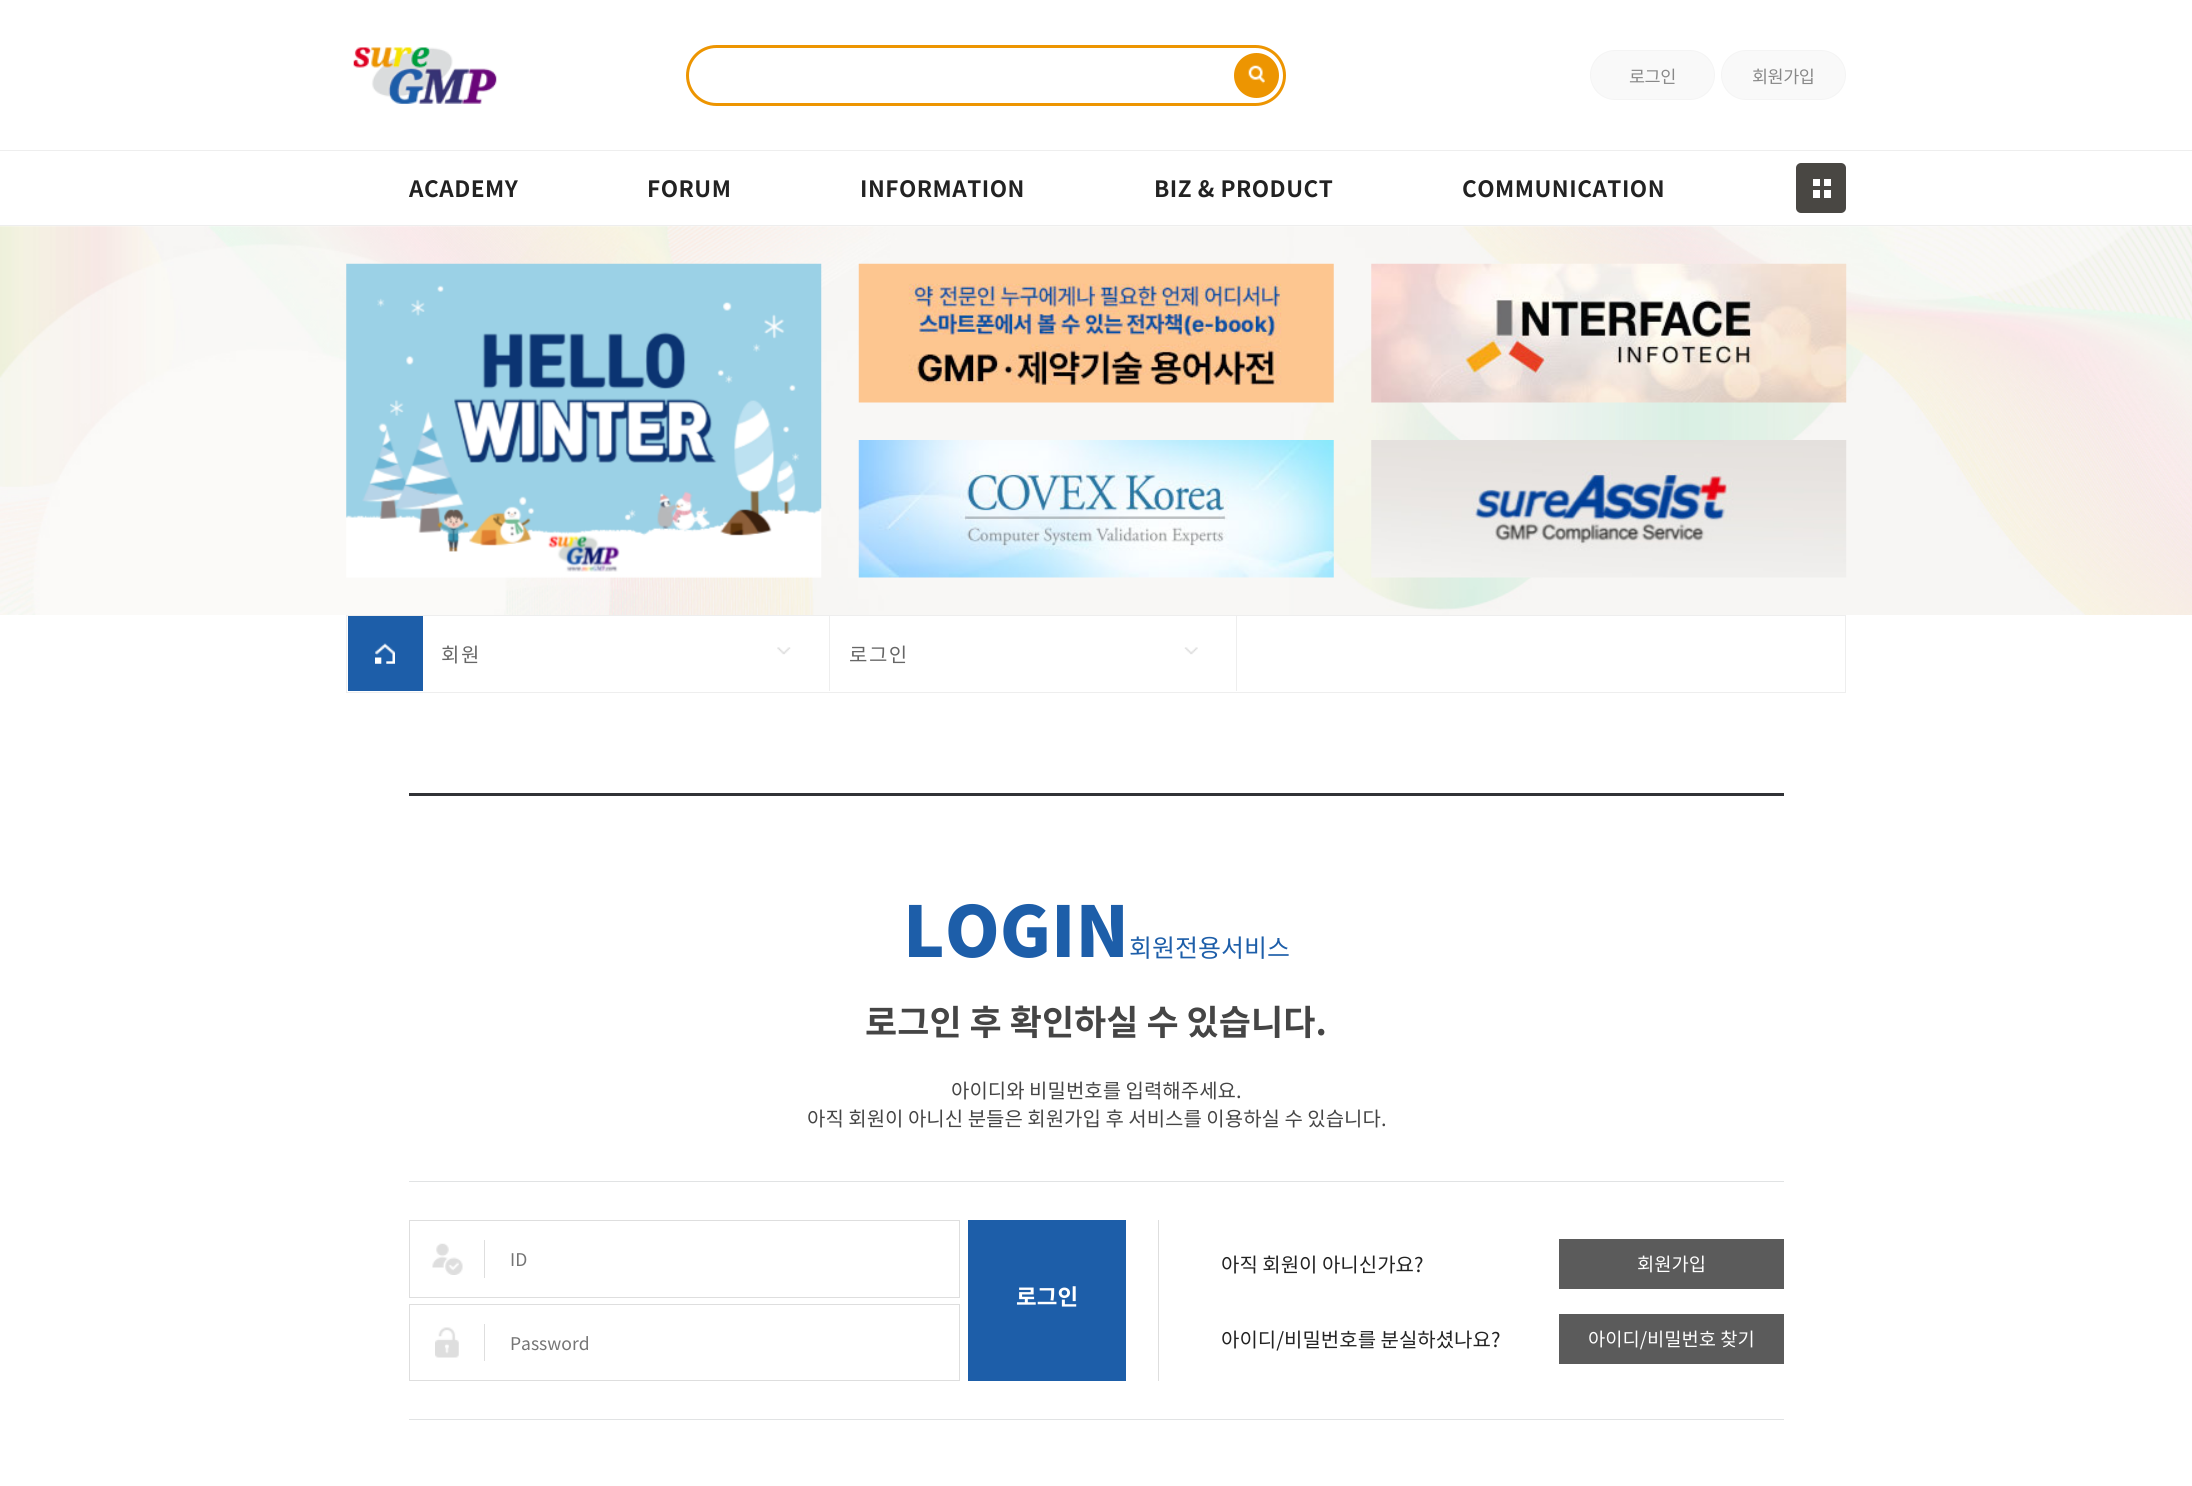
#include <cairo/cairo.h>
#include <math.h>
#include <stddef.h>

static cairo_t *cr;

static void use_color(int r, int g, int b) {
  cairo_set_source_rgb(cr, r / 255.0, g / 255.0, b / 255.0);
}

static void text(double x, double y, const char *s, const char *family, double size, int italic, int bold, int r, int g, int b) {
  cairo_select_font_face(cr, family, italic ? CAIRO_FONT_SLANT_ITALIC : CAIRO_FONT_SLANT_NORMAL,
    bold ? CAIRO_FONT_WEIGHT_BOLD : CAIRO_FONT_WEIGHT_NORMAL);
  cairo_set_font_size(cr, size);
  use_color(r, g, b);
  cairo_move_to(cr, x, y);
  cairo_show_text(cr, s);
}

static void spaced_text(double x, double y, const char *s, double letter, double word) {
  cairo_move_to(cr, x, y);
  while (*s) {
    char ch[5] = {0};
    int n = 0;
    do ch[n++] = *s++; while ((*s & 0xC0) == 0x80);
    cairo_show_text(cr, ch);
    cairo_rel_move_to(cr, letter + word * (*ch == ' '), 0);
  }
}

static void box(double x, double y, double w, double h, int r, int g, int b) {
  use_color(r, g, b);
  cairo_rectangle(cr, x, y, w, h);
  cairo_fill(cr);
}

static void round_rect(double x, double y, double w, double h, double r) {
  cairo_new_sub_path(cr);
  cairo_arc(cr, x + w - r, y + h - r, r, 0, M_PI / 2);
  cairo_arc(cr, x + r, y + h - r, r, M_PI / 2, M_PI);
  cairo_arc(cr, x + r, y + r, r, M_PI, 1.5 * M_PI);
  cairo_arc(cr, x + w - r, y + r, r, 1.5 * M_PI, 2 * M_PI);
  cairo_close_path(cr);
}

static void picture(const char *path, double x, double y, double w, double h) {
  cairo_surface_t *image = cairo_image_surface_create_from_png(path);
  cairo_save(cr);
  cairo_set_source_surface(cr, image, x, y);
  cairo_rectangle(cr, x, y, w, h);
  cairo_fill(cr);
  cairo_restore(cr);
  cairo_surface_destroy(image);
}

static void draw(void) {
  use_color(255, 255, 255);
  cairo_paint(cr);
  round_rect(687.5, 46.5, 597, 58, 29);
  use_color(237, 149, 1);
  cairo_set_line_width(cr, 3);
  cairo_stroke(cr);
  cairo_arc(cr, 1256.5, 75.5, 22.5, 0, 2 * M_PI);
  cairo_fill(cr);
  picture("img_01.png", 1248, 65, 17, 19);
  picture("img_02.png", 353, 47, 144, 57);
  use_color(249, 249, 249);
  round_rect(1590.5, 50.5, 124, 49, 24.5);
  cairo_fill_preserve(cr);
  use_color(244, 244, 244);
  cairo_set_line_width(cr, 1);
  cairo_stroke(cr);
  use_color(249, 249, 249);
  round_rect(1721.5, 50.5, 124, 49, 24.5);
  cairo_fill_preserve(cr);
  use_color(244, 244, 244);
  cairo_stroke(cr);
  box(0, 150, 2192, 1, 238, 238, 238);
  box(0, 225, 2192, 1, 238, 238, 238);
  use_color(73, 71, 67);
  round_rect(1796, 163, 50, 50, 5);
  cairo_fill(cr);
  box(1813, 179, 7, 7, 255, 255, 255);
  box(1824, 179, 7, 7, 255, 255, 255);
  box(1813, 190, 7, 8, 255, 255, 255);
  box(1824, 190, 7, 8, 255, 255, 255);
  picture("img_03.png", 0, 226, 2192, 389);
  picture("img_04.png", 346, 263, 476, 315);
  picture("img_05.png", 858, 263, 476, 140);
  picture("img_06.png", 1371, 263, 476, 140);
  picture("img_07.png", 858, 440, 476, 138);
  picture("img_08.png", 1371, 440, 476, 138);
  cairo_rectangle(cr, 346.5, 615.5, 1499, 77);
  use_color(238, 238, 238);
  cairo_stroke(cr);
  box(348, 616, 75, 75, 29, 94, 169);
  picture("img_09.png", 375, 643, 20, 21);
  box(829, 616, 1, 75, 238, 238, 238);
  picture("img_10.png", 777, 647, 14, 8);
  box(1236, 616, 1, 75, 238, 238, 238);
  picture("img_11.png", 1184, 647, 14, 8);
  box(409, 793, 1375, 3, 49, 50, 54);
  box(409, 1181, 1375, 1, 225, 227, 228);
  box(409, 1419, 1375, 1, 225, 227, 228);
  box(1158, 1220, 1, 161, 222, 222, 222);
  cairo_rectangle(cr, 409.5, 1220.5, 550, 77);
  cairo_stroke(cr);
  box(484, 1240, 1, 38, 222, 222, 222);
  picture("img_12.png", 432, 1243, 31, 32);
  cairo_rectangle(cr, 409.5, 1304.5, 550, 76);
  cairo_stroke(cr);
  box(484, 1324, 1, 37, 222, 222, 222);
  picture("img_13.png", 435, 1327, 24, 31);
  box(968, 1220, 158, 161, 29, 94, 169);
  box(1559, 1239, 225, 50, 91, 91, 91);
  box(1559, 1314, 225, 50, 91, 91, 91);
  cairo_select_font_face(cr, "Noto Sans KR", CAIRO_FONT_SLANT_NORMAL, CAIRO_FONT_WEIGHT_NORMAL);
  cairo_set_font_size(cr, 17.5);
  use_color(136, 136, 136);
  spaced_text(1629, 83, "로그인", -0.5, 0);
  spaced_text(1752, 83, "회원가입", -0.5, 0);
  cairo_select_font_face(cr, "Noto Sans KR", CAIRO_FONT_SLANT_NORMAL, CAIRO_FONT_WEIGHT_BOLD);
  cairo_set_font_size(cr, 22.5);
  use_color(34, 34, 34);
  spaced_text(409, 197, "ACADEMY", 0.5, 0);
  spaced_text(647, 197, "FORUM", 0.5, 0);
  spaced_text(860, 197, "INFORMATION", 0.5, 0);
  spaced_text(1154, 197, "BIZ & PRODUCT", 0.5, 0);
  spaced_text(1462, 197, "COMMUNICATION", 0.5, 0);
  cairo_select_font_face(cr, "Noto Sans KR", CAIRO_FONT_SLANT_NORMAL, CAIRO_FONT_WEIGHT_NORMAL);
  cairo_set_font_size(cr, 20);
  use_color(102, 102, 102);
  spaced_text(441, 662, "회원", 1.5, 0);
  spaced_text(849, 662, "로그인", 1.5, 0);
  text(903, 957, "LOGIN", "Noto Sans KR Black", 70, 0, 0, 29, 94, 169);
  text(1129, 957, "회원전용서비스", "Noto Sans KR", 25, 0, 0, 29, 94, 169);
  text(865, 1035, "로그인 후 확인하실 수 있습니다.", "Noto Sans KR", 35, 0, 1, 69, 69, 69);
  text(951, 1098, "아이디와 비밀번호를 입력해주세요.", "Noto Sans KR", 20, 0, 0, 69, 69, 69);
  text(807, 1126, "아직 회원이 아니신 분들은 회원가입 후 서비스를 이용하실 수 있습니다.", "Noto Sans KR", 20, 0, 0, 69, 69, 69);
  text(510, 1266, "ID", "Noto Sans KR", 17.5, 0, 0, 117, 117, 117);
  text(510, 1350, "Password", "Noto Sans KR", 17.5, 0, 0, 117, 117, 117);
  text(1016, 1305, "로그인", "Noto Sans KR", 22.5, 0, 1, 255, 255, 255);
  text(1221, 1272, "아직 회원이 아니신가요?", "Noto Sans KR", 20, 0, 0, 34, 34, 34);
  text(1637, 1271, "회원가입", "Noto Sans KR", 18.75, 0, 0, 255, 255, 255);
  text(1221, 1347, "아이디/비밀번호를 분실하셨나요?", "Noto Sans KR", 20, 0, 0, 34, 34, 34);
  text(1588, 1346, "아이디/비밀번호 찾기", "Noto Sans KR", 18.75, 0, 0, 255, 255, 255);
}

int main(void) {
  cairo_surface_t *surface = cairo_image_surface_create(CAIRO_FORMAT_RGB24, 2192, 1486);
  cr = cairo_create(surface);
  cairo_font_options_t *options = cairo_font_options_create();
  cairo_font_options_set_hint_metrics(options, CAIRO_HINT_METRICS_OFF);
  cairo_font_options_set_hint_style(options, CAIRO_HINT_STYLE_NONE);
  cairo_set_font_options(cr, options);
  cairo_set_miter_limit(cr, 4);
  draw();
  cairo_surface_write_to_png(surface, "out.png");
  cairo_font_options_destroy(options);
  cairo_destroy(cr);
  cairo_surface_destroy(surface);
  return 0;
}
